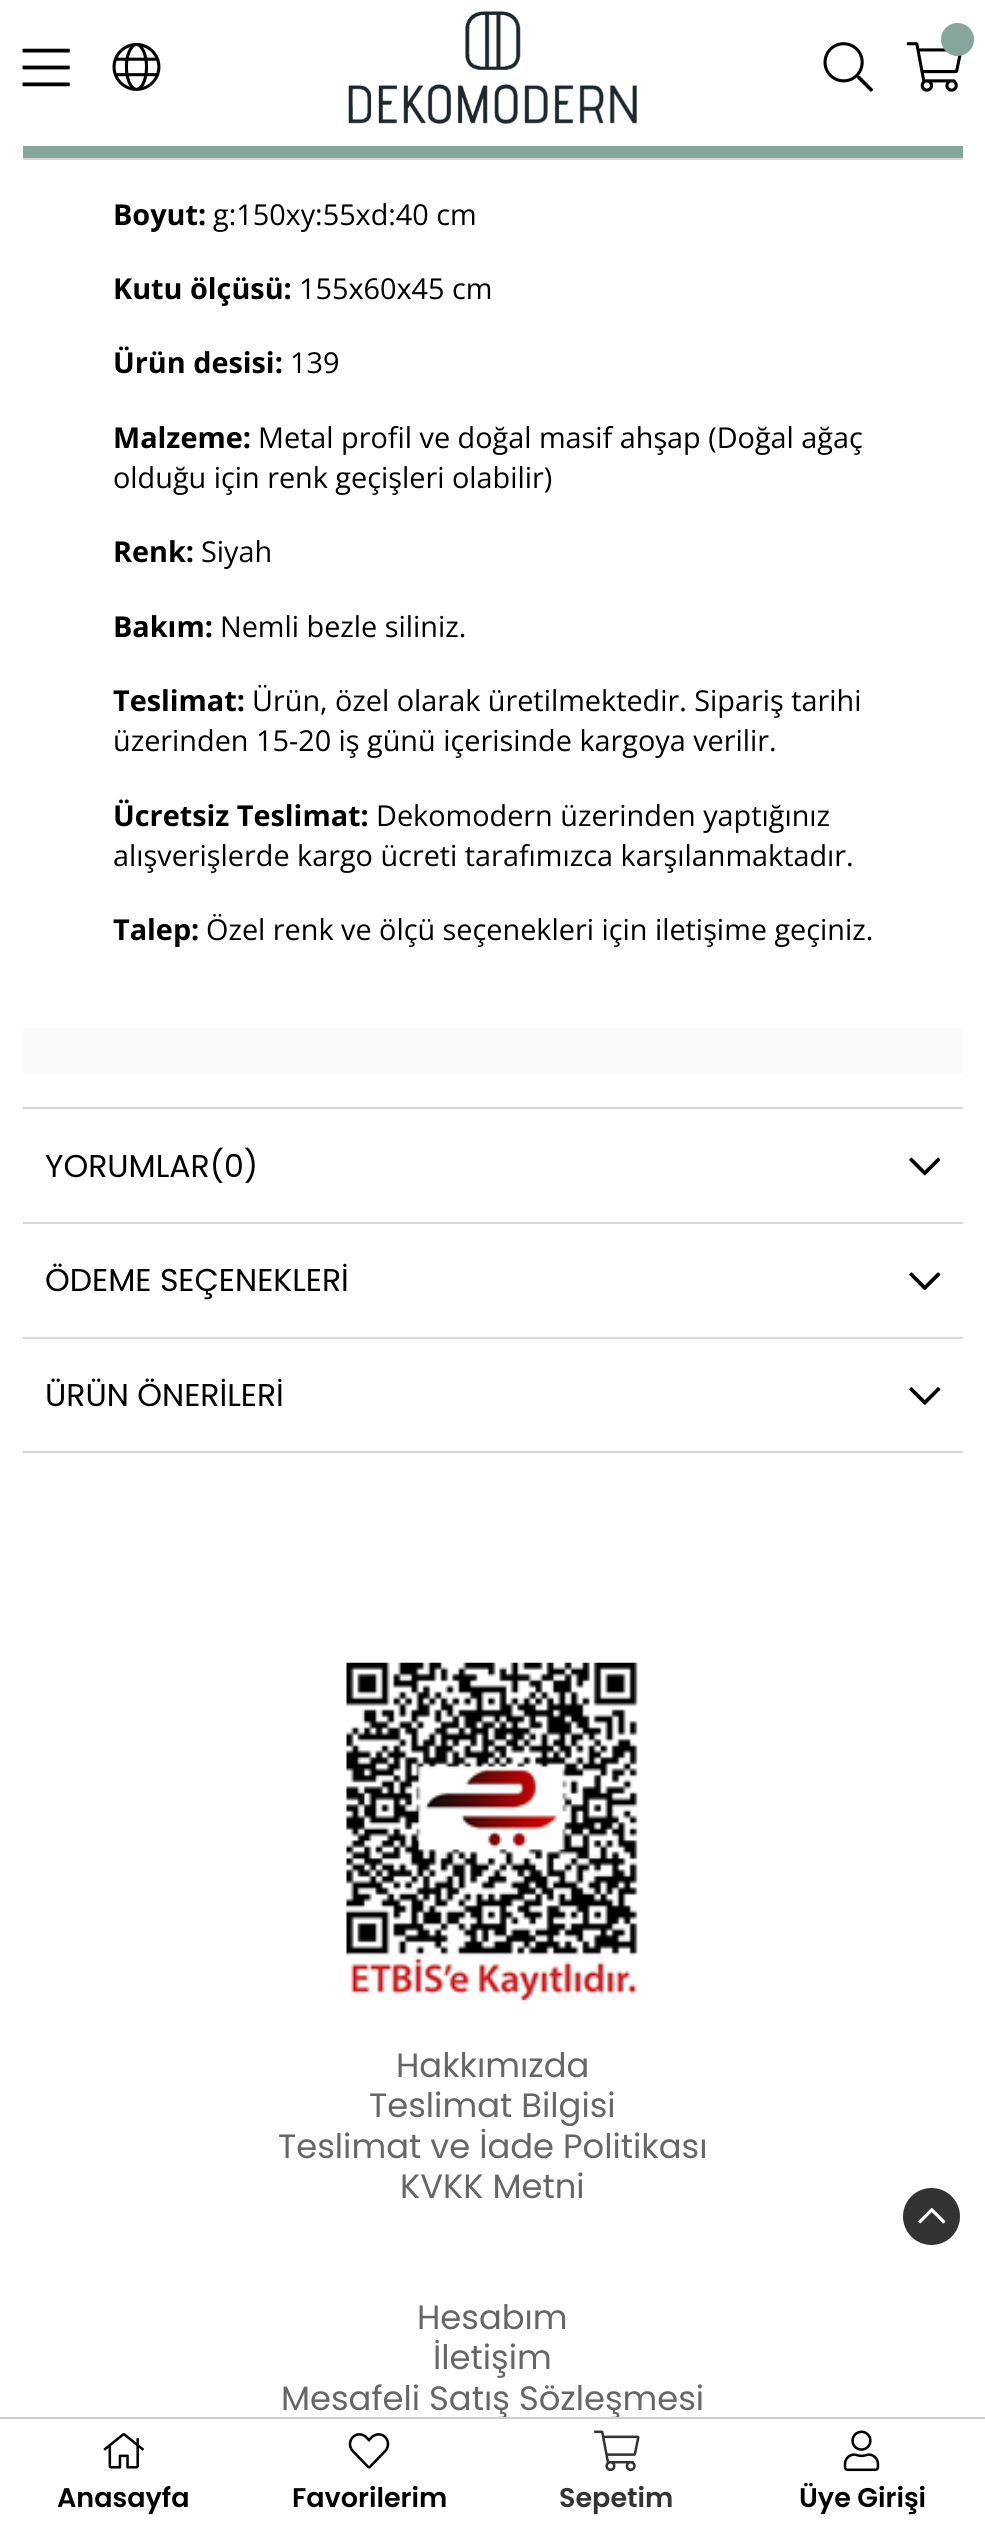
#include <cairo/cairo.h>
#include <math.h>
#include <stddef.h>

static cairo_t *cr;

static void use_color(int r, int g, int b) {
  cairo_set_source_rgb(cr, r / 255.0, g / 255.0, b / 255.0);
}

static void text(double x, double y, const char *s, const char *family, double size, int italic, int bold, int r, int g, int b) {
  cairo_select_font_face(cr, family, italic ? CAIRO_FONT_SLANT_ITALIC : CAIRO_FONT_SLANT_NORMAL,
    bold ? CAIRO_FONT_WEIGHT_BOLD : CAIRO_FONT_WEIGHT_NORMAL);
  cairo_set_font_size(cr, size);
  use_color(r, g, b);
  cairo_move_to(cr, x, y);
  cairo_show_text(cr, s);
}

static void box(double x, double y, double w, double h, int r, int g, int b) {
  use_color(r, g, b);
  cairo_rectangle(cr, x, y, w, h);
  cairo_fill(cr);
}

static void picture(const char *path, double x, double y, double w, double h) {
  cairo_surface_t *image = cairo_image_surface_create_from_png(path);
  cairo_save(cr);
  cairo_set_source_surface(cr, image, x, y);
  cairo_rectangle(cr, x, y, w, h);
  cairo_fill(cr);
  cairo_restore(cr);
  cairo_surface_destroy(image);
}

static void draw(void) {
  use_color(255, 255, 255);
  cairo_paint(cr);
  picture("img_01.png", 22, 48, 48, 39);
  picture("img_02.png", 112, 43, 49, 48);
  picture("img_03.png", 348, 11, 289, 113);
  picture("img_04.png", 823, 42, 50, 50);
  picture("img_05.png", 906, 42, 56, 50);
  use_color(134, 166, 157);
  cairo_arc(cr, 957.5, 39.5, 16.5, 0, 2 * M_PI);
  cairo_fill(cr);
  box(23, 1107, 940, 2, 215, 215, 215);
  box(23, 146, 940, 12, 134, 166, 157);
  box(23, 158, 940, 2, 215, 215, 215);
  box(23, 1028, 940, 45, 250, 250, 250);
  box(23, 1222, 940, 2, 215, 215, 215);
  picture("img_06.png", 909, 1157, 32, 19);
  box(23, 1337, 940, 2, 215, 215, 215);
  picture("img_07.png", 909, 1272, 32, 19);
  box(23, 1451, 940, 2, 215, 215, 215);
  picture("img_08.png", 909, 1387, 32, 18);
  picture("img_09.png", 346, 1662, 292, 339);
  use_color(51, 51, 51);
  cairo_arc(cr, 931.5, 2216.5, 31, 0, 2 * M_PI);
  cairo_fill_preserve(cr);
  use_color(255, 255, 255);
  cairo_set_line_width(cr, 5);
  cairo_stroke(cr);
  picture("img_10.png", 918, 2207, 28, 17);
  picture("img_11.png", 103, 2433, 41, 36);
  picture("img_12.png", 348, 2433, 42, 36);
  picture("img_13.png", 594, 2430, 46, 42);
  picture("img_14.png", 843, 2430, 37, 42);
  text(113, 225, "Boyut:", "Open Sans", 28.8, 0, 1, 0, 0, 0);
  text(213, 225, "g:150xy:55xd:40 cm", "Open Sans", 28.8, 0, 0, 0, 0, 0);
  text(113, 299, "Kutu ölçüsü:", "Open Sans", 28.8, 0, 1, 0, 0, 0);
  text(299, 299, "155x60x45 cm", "Open Sans", 28.8, 0, 0, 0, 0, 0);
  text(113, 373, "Ürün desisi:", "Open Sans", 28.8, 0, 1, 0, 0, 0);
  text(290, 373, "139", "Open Sans", 28.8, 0, 0, 0, 0, 0);
  text(113, 448, "Malzeme:", "Open Sans", 28.8, 0, 1, 0, 0, 0);
  text(258, 448, "Metal profil ve doğal masif ahşap (Doğal ağaç", "Open Sans", 28.8, 0, 0, 0, 0, 0);
  text(113, 488, "olduğu için renk geçişleri olabilir)", "Open Sans", 28.8, 0, 0, 0, 0, 0);
  text(113, 562, "Renk:", "Open Sans", 28.8, 0, 1, 0, 0, 0);
  text(201, 562, "Siyah", "Open Sans", 28.8, 0, 0, 0, 0, 0);
  text(113, 637, "Bakım:", "Open Sans", 28.8, 0, 1, 0, 0, 0);
  text(220, 637, "Nemli bezle siliniz.", "Open Sans", 28.8, 0, 0, 0, 0, 0);
  text(113, 711, "Teslimat:", "Open Sans", 28.8, 0, 1, 0, 0, 0);
  text(252, 711, "Ürün, özel olarak üretilmektedir. Sipariş tarihi", "Open Sans", 28.8, 0, 0, 0, 0, 0);
  text(113, 751, "üzerinden 15-20 iş günü içerisinde kargoya verilir.", "Open Sans", 28.8, 0, 0, 0, 0, 0);
  text(113, 826, "Ücretsiz Teslimat:", "Open Sans", 28.8, 0, 1, 0, 0, 0);
  text(376, 826, "Dekomodern üzerinden yaptığınız", "Open Sans", 28.8, 0, 0, 0, 0, 0);
  text(113, 866, "alışverişlerde kargo ücreti tarafımızca karşılanmaktadır.", "Open Sans", 28.8, 0, 0, 0, 0, 0);
  text(113, 940, "Talep:", "Open Sans", 28.8, 0, 1, 0, 0, 0);
  text(206, 940, "Özel renk ve ölçü seçenekleri için iletişime geçiniz.", "Open Sans", 28.8, 0, 0, 0, 0, 0);
  text(45, 1177, "YORUMLAR(0)", "Poppins", 31.5, 0, 0, 0, 0, 0);
  text(45, 1291, "ÖDEME SEÇENEKLERİ", "Poppins", 31.5, 0, 0, 0, 0, 0);
  text(45, 1406, "ÜRÜN ÖNERİLERİ", "Poppins", 31.5, 0, 0, 0, 0, 0);
  text(396, 2077, "Hakkımızda", "Poppins", 33.75, 0, 0, 102, 102, 102);
  text(369, 2117, "Teslimat Bilgisi", "Poppins", 33.75, 0, 0, 102, 102, 102);
  text(278, 2158, "Teslimat ve İade Politikası", "Poppins", 33.75, 0, 0, 102, 102, 102);
  text(400, 2198, "KVKK Metni", "Poppins", 33.75, 0, 0, 102, 102, 102);
  text(417, 2329, "Hesabım", "Poppins", 33.75, 0, 0, 102, 102, 102);
  text(433, 2369, "İletişim", "Poppins", 33.75, 0, 0, 102, 102, 102);
  text(281, 2410, "Mesafeli Satış Sözleşmesi", "Poppins", 33.75, 0, 0, 102, 102, 102);
  box(0, 2417, 985, 2, 206, 206, 206);
  text(57, 2507, "Anasayfa", "Poppins SemiBold", 27, 0, 0, 0, 0, 0);
  text(292, 2507, "Favorilerim", "Poppins SemiBold", 27, 0, 0, 0, 0, 0);
  text(559, 2507, "Sepetim", "Poppins SemiBold", 27, 0, 0, 51, 51, 51);
  text(799, 2507, "Üye Girişi", "Poppins SemiBold", 27, 0, 0, 0, 0, 0);
}

int main(void) {
  cairo_surface_t *surface = cairo_image_surface_create(CAIRO_FORMAT_RGB24, 985, 2527);
  cr = cairo_create(surface);
  cairo_font_options_t *options = cairo_font_options_create();
  cairo_font_options_set_hint_metrics(options, CAIRO_HINT_METRICS_OFF);
  cairo_font_options_set_hint_style(options, CAIRO_HINT_STYLE_NONE);
  cairo_set_font_options(cr, options);
  cairo_set_miter_limit(cr, 4);
  draw();
  cairo_surface_write_to_png(surface, "out.png");
  cairo_font_options_destroy(options);
  cairo_destroy(cr);
  cairo_surface_destroy(surface);
  return 0;
}
